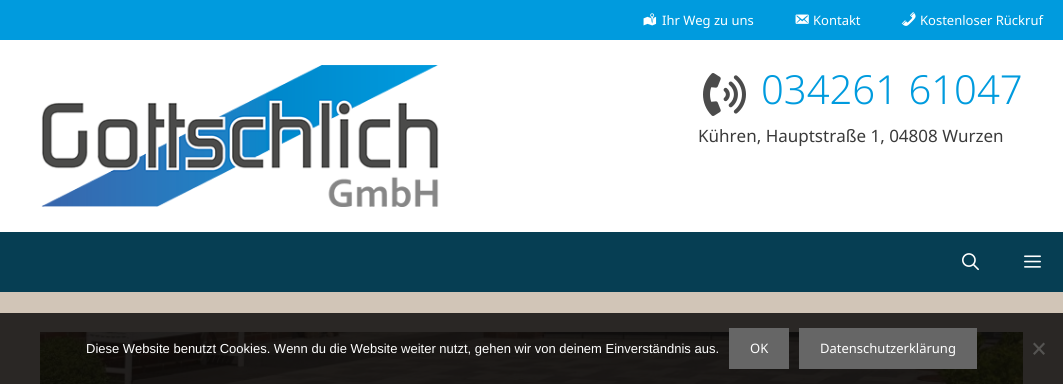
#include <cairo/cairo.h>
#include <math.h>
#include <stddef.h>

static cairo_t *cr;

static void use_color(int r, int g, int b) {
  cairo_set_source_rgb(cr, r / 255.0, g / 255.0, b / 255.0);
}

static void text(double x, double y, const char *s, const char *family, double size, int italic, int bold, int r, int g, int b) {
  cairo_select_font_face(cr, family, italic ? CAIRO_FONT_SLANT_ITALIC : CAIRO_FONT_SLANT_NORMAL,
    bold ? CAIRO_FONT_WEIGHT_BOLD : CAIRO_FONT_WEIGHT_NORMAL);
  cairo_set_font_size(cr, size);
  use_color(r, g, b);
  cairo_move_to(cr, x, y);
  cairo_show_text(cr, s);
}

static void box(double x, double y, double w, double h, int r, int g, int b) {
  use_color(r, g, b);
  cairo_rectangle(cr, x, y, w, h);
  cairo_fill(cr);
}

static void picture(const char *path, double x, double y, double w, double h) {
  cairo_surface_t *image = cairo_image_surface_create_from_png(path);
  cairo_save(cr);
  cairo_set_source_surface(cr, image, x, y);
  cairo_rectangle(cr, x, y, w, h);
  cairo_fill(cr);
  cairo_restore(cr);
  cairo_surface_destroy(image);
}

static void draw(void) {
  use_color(0, 155, 222);
  cairo_paint(cr);
  picture("img_01.png", 643, 13, 14, 13);
  picture("img_02.png", 795, 14, 14, 10);
  picture("img_03.png", 901, 12, 15, 14);
  box(0, 40, 1063, 192, 255, 255, 255);
  picture("img_04.png", 41, 65, 398, 142);
  picture("img_05.png", 703, 73, 43, 43);
  box(0, 232, 1063, 60, 6, 62, 83);
  picture("img_06.png", 962, 253, 17, 18);
  picture("img_07.png", 1024, 255, 17, 13);
  box(0, 292, 1063, 21, 209, 197, 183);
  box(0, 313, 1063, 71, 42, 39, 37);
  picture("img_08.png", 40, 332, 983, 52);
  box(729, 328, 60, 41, 102, 102, 102);
  box(799, 328, 178, 41, 102, 102, 102);
  use_color(85, 84, 82);
  cairo_new_path(cr);
  cairo_move_to(cr, 1043.5, 342.5);
  cairo_line_to(cr, 1045, 344);
  cairo_line_to(cr, 1034.5, 355);
  cairo_line_to(cr, 1033, 353.5);
  cairo_close_path(cr);
  cairo_fill(cr);
  cairo_new_path(cr);
  cairo_move_to(cr, 1033, 344);
  cairo_line_to(cr, 1034.5, 342.5);
  cairo_line_to(cr, 1045, 353.5);
  cairo_line_to(cr, 1043.5, 355);
  cairo_close_path(cr);
  cairo_fill(cr);
  text(662, 25, "Ihr Weg zu uns", "Noto Sans", 13, 0, 0, 255, 255, 255);
  text(813, 25, "Kontakt", "Noto Sans", 13, 0, 0, 255, 255, 255);
  text(920, 25, "Kostenloser Rückruf", "Noto Sans", 13, 0, 0, 255, 255, 255);
  text(761, 104, "034261 61047", "Noto Sans Light", 40, 0, 0, 0, 155, 222);
  text(698, 142, "Kühren, Hauptstraße 1, 04808 Wurzen", "Noto Sans", 17, 0, 0, 58, 58, 58);
  text(86, 353, "Diese Website benutzt Cookies. Wenn du die Website weiter nutzt, gehen wir von deinem Einverständnis aus.", "Liberation Sans", 13, 0, 0, 255, 255, 255);
  text(750, 353, "OK", "Noto Sans", 13, 0, 0, 255, 255, 255);
  text(820, 353, "Datenschutzerklärung", "Noto Sans", 13, 0, 0, 255, 255, 255);
}

int main(void) {
  cairo_surface_t *surface = cairo_image_surface_create(CAIRO_FORMAT_RGB24, 1063, 384);
  cr = cairo_create(surface);
  cairo_font_options_t *options = cairo_font_options_create();
  cairo_font_options_set_hint_metrics(options, CAIRO_HINT_METRICS_OFF);
  cairo_font_options_set_hint_style(options, CAIRO_HINT_STYLE_NONE);
  cairo_set_font_options(cr, options);
  cairo_set_miter_limit(cr, 4);
  draw();
  cairo_surface_write_to_png(surface, "out.png");
  cairo_font_options_destroy(options);
  cairo_destroy(cr);
  cairo_surface_destroy(surface);
  return 0;
}
